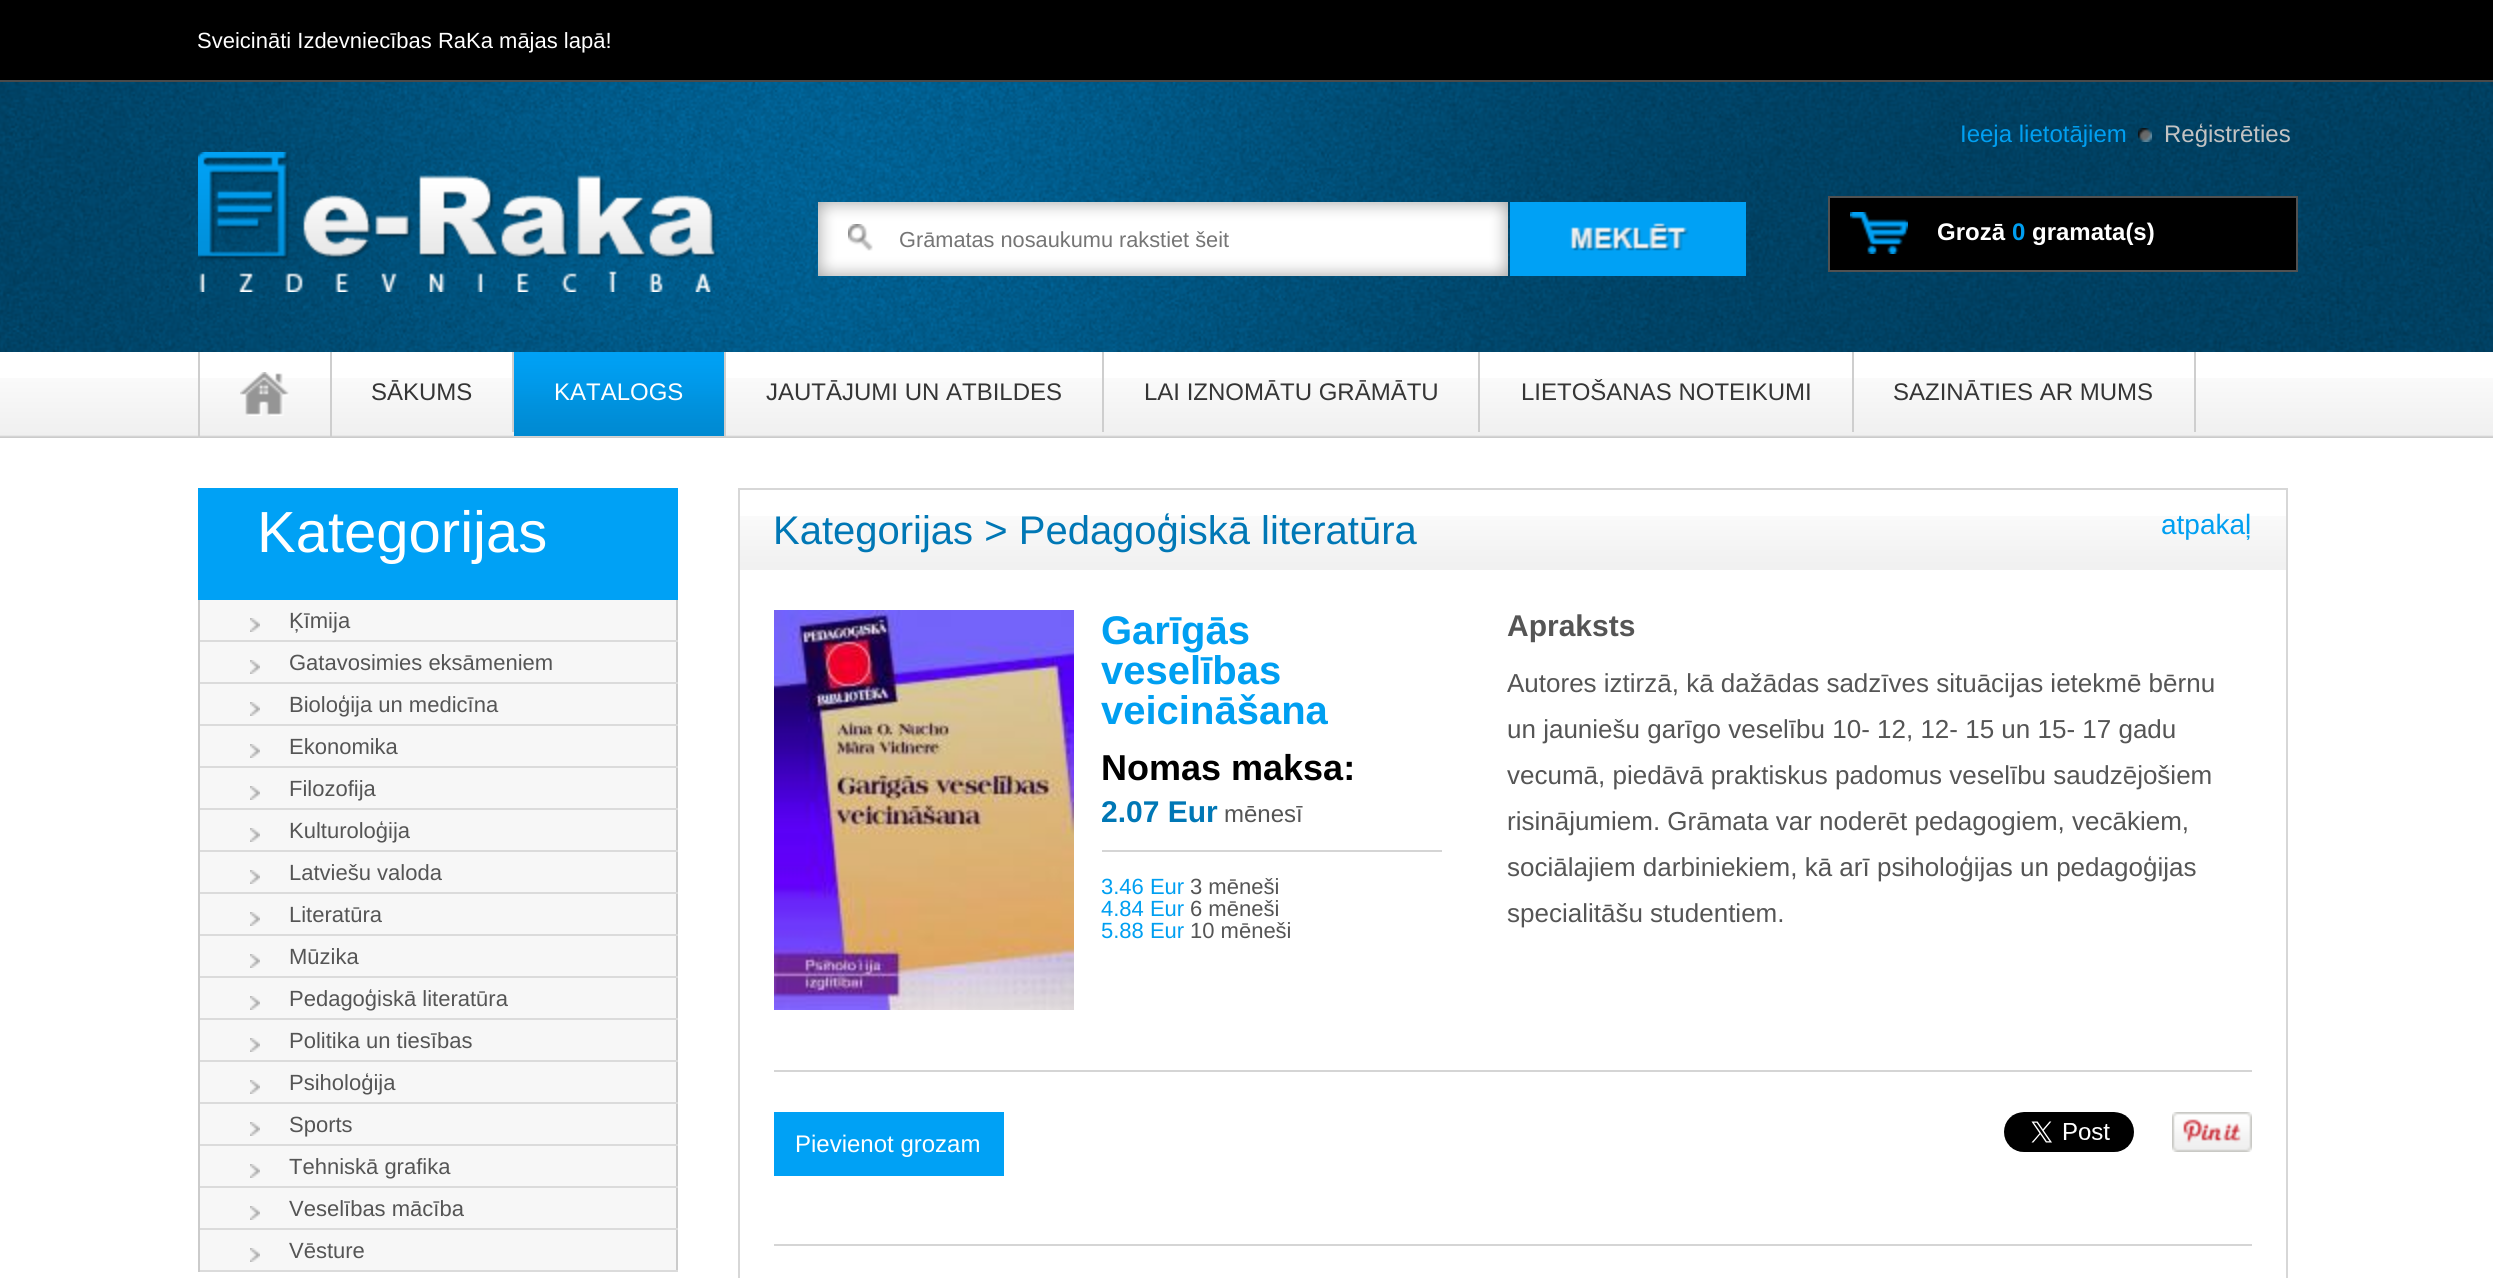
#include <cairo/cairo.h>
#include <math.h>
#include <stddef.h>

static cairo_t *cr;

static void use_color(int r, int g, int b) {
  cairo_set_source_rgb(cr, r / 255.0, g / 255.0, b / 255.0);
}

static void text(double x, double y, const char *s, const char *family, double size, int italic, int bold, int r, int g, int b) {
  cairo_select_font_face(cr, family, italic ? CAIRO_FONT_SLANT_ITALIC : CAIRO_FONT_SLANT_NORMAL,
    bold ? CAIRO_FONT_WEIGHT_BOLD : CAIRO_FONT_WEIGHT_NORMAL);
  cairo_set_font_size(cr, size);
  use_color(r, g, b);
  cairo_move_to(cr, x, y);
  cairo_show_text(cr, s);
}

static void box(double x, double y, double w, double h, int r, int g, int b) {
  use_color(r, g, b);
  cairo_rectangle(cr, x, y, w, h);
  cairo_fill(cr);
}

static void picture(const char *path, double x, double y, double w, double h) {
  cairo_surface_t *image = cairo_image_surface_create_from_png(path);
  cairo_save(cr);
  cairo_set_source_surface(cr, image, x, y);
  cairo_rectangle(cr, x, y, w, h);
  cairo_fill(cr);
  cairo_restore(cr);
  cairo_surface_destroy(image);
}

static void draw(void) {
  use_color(255, 255, 255);
  cairo_paint(cr);
  box(0, 0, 2493, 80, 0, 0, 0);
  box(0, 80, 2493, 2, 74, 74, 74);
  picture("img_01.png", 0, 82, 2493, 270);
  picture("img_02.png", 198, 152, 520, 140);
  picture("img_04.png", 818, 202, 690, 74);
  picture("img_03.png", 848, 224, 25, 27);
  picture("img_05.png", 1510, 202, 236, 74);
  picture("img_06.png", 2138, 128, 14, 14);
  use_color(0, 0, 0);
  cairo_rectangle(cr, 1829, 197, 468, 74);
  cairo_fill_preserve(cr);
  use_color(81, 81, 81);
  cairo_stroke(cr);
  picture("img_07.png", 1850, 212, 58, 42);
  picture("img_08.png", 0, 378, 2493, 60);
  box(330, 352, 2, 86, 206, 206, 206);
  box(198, 352, 2, 86, 206, 206, 206);
  picture("img_09.png", 240, 372, 49, 44);
  box(512, 352, 2, 80, 206, 206, 206);
  picture("img_10.png", 514, 352, 210, 84);
  box(724, 352, 2, 86, 206, 206, 206);
  box(1102, 352, 2, 80, 206, 206, 206);
  box(1478, 352, 2, 80, 206, 206, 206);
  box(1852, 352, 2, 80, 206, 206, 206);
  box(2194, 352, 2, 80, 206, 206, 206);
  box(198, 488, 480, 112, 0, 161, 245);
  box(200, 600, 476, 40, 247, 247, 247);
  box(676, 600, 2, 672, 203, 203, 203);
  box(198, 640, 480, 2, 219, 219, 219);
  box(198, 600, 2, 42, 203, 203, 203);
  picture("img_11.png", 250, 618, 10, 14);
  box(200, 642, 476, 40, 247, 247, 247);
  box(198, 682, 480, 2, 219, 219, 219);
  box(198, 642, 2, 42, 203, 203, 203);
  picture("img_11.png", 250, 660, 10, 14);
  box(200, 684, 476, 40, 247, 247, 247);
  box(198, 724, 480, 2, 219, 219, 219);
  box(198, 684, 2, 42, 203, 203, 203);
  picture("img_11.png", 250, 702, 10, 14);
  box(200, 726, 476, 40, 247, 247, 247);
  box(198, 766, 480, 2, 219, 219, 219);
  box(198, 726, 2, 42, 203, 203, 203);
  picture("img_11.png", 250, 744, 10, 14);
  box(200, 768, 476, 40, 247, 247, 247);
  box(198, 808, 480, 2, 219, 219, 219);
  box(198, 768, 2, 42, 203, 203, 203);
  picture("img_11.png", 250, 786, 10, 14);
  box(200, 810, 476, 40, 247, 247, 247);
  box(198, 850, 480, 2, 219, 219, 219);
  box(198, 810, 2, 42, 203, 203, 203);
  picture("img_11.png", 250, 828, 10, 14);
  box(200, 852, 476, 40, 247, 247, 247);
  box(198, 892, 480, 2, 219, 219, 219);
  box(198, 852, 2, 42, 203, 203, 203);
  picture("img_11.png", 250, 870, 10, 14);
  box(200, 894, 476, 40, 247, 247, 247);
  box(198, 934, 480, 2, 219, 219, 219);
  box(198, 894, 2, 42, 203, 203, 203);
  picture("img_11.png", 250, 912, 10, 14);
  box(200, 936, 476, 40, 247, 247, 247);
  box(198, 976, 480, 2, 219, 219, 219);
  box(198, 936, 2, 42, 203, 203, 203);
  picture("img_11.png", 250, 954, 10, 14);
  box(200, 978, 476, 40, 247, 247, 247);
  box(198, 1018, 480, 2, 219, 219, 219);
  box(198, 978, 2, 42, 203, 203, 203);
  picture("img_11.png", 250, 996, 10, 14);
  box(200, 1020, 476, 40, 247, 247, 247);
  box(198, 1060, 480, 2, 219, 219, 219);
  box(198, 1020, 2, 42, 203, 203, 203);
  picture("img_11.png", 250, 1038, 10, 14);
  box(200, 1062, 476, 40, 247, 247, 247);
  box(198, 1102, 480, 2, 219, 219, 219);
  box(198, 1062, 2, 42, 203, 203, 203);
  picture("img_11.png", 250, 1080, 10, 14);
  box(200, 1104, 476, 40, 247, 247, 247);
  box(198, 1144, 480, 2, 219, 219, 219);
  box(198, 1104, 2, 42, 203, 203, 203);
  picture("img_11.png", 250, 1122, 10, 14);
  box(200, 1146, 476, 40, 247, 247, 247);
  box(198, 1186, 480, 2, 219, 219, 219);
  box(198, 1146, 2, 42, 203, 203, 203);
  picture("img_11.png", 250, 1164, 10, 14);
  box(200, 1188, 476, 40, 247, 247, 247);
  box(198, 1228, 480, 2, 219, 219, 219);
  box(198, 1188, 2, 42, 203, 203, 203);
  picture("img_11.png", 250, 1206, 10, 14);
  box(200, 1230, 476, 40, 247, 247, 247);
  box(198, 1270, 480, 2, 219, 219, 219);
  box(198, 1230, 2, 42, 203, 203, 203);
  picture("img_11.png", 250, 1248, 10, 14);
  picture("img_12.png", 740, 516, 1546, 54);
  box(738, 488, 1550, 2, 215, 215, 215);
  box(2286, 488, 2, 790, 215, 215, 215);
  box(738, 488, 2, 790, 215, 215, 215);
  picture("img_13.png", 774, 610, 300, 400);
  box(1102, 850, 340, 2, 213, 213, 213);
  box(774, 1070, 1478, 2, 213, 213, 213);
  box(774, 1244, 1478, 2, 213, 213, 213);
  box(774, 1112, 230, 64, 0, 161, 245);
  picture("img_14.png", 2004, 1112, 130, 40);
  picture("img_15.png", 2172, 1112, 80, 40);
  text(197, 48, "Sveicināti Izdevniecības RaKa mājas lapā!", "Liberation Sans", 22, 0, 0, 255, 255, 255);
  text(899, 247, "Grāmatas nosaukumu rakstiet šeit", "Liberation Sans", 21.75, 0, 0, 117, 117, 117);
  text(1960, 142, "Ieeja lietotājiem", "Liberation Sans", 24, 0, 0, 0, 159, 241);
  text(2164, 142, "Reģistrēties", "Liberation Sans", 24, 0, 0, 195, 195, 195);
  text(1937, 240, "Grozā", "Liberation Sans", 24, 0, 1, 255, 255, 255);
  text(2012, 240, "0", "Liberation Sans", 24, 0, 1, 0, 159, 241);
  text(2032, 240, "gramata(s)", "Liberation Sans", 24, 0, 1, 255, 255, 255);
  text(371, 400, "SĀKUMS", "Liberation Sans", 24, 0, 0, 53, 53, 53);
  text(554, 400, "KATALOGS", "Liberation Sans", 24, 0, 0, 255, 255, 255);
  text(766, 400, "JAUTĀJUMI UN ATBILDES", "Liberation Sans", 24, 0, 0, 53, 53, 53);
  text(1144, 400, "LAI IZNOMĀTU GRĀMĀTU", "Liberation Sans", 24, 0, 0, 53, 53, 53);
  text(1521, 400, "LIETOŠANAS NOTEIKUMI", "Liberation Sans", 24, 0, 0, 53, 53, 53);
  text(1893, 400, "SAZINĀTIES AR MUMS", "Liberation Sans", 24, 0, 0, 53, 53, 53);
  text(257, 552, "Kategorijas", "Liberation Sans", 58, 0, 0, 255, 255, 255);
  text(289, 628, "Ķīmija", "Liberation Sans", 22, 0, 0, 85, 85, 85);
  text(289, 670, "Gatavosimies eksāmeniem", "Liberation Sans", 22, 0, 0, 85, 85, 85);
  text(289, 712, "Bioloģija un medicīna", "Liberation Sans", 22, 0, 0, 85, 85, 85);
  text(289, 754, "Ekonomika", "Liberation Sans", 22, 0, 0, 85, 85, 85);
  text(289, 796, "Filozofija", "Liberation Sans", 22, 0, 0, 85, 85, 85);
  text(289, 838, "Kulturoloģija", "Liberation Sans", 22, 0, 0, 85, 85, 85);
  text(289, 880, "Latviešu valoda", "Liberation Sans", 22, 0, 0, 85, 85, 85);
  text(289, 922, "Literatūra", "Liberation Sans", 22, 0, 0, 85, 85, 85);
  text(289, 964, "Mūzika", "Liberation Sans", 22, 0, 0, 85, 85, 85);
  text(289, 1006, "Pedagoģiskā literatūra", "Liberation Sans", 22, 0, 0, 85, 85, 85);
  text(289, 1048, "Politika un tiesības", "Liberation Sans", 22, 0, 0, 85, 85, 85);
  text(289, 1090, "Psiholoģija", "Liberation Sans", 22, 0, 0, 85, 85, 85);
  text(289, 1132, "Sports", "Liberation Sans", 22, 0, 0, 85, 85, 85);
  text(289, 1174, "Tehniskā grafika", "Liberation Sans", 22, 0, 0, 85, 85, 85);
  text(289, 1216, "Veselības mācība", "Liberation Sans", 22, 0, 0, 85, 85, 85);
  text(289, 1258, "Vēsture", "Liberation Sans", 22, 0, 0, 85, 85, 85);
  text(773, 544, "Kategorijas > Pedagoģiskā literatūra", "Liberation Sans", 40, 0, 0, 0, 119, 181);
  text(2161, 534, "atpakaļ", "Liberation Sans", 28, 0, 0, 0, 159, 241);
  text(1101, 644, "Garīgās", "Liberation Sans", 40, 0, 1, 0, 159, 241);
  text(1101, 684, "veselības", "Liberation Sans", 40, 0, 1, 0, 159, 241);
  text(1101, 724, "veicināšana", "Liberation Sans", 40, 0, 1, 0, 159, 241);
  text(1101, 780, "Nomas maksa:", "Liberation Sans", 36, 0, 1, 0, 0, 0);
  text(1101, 822, "2.07 Eur", "Liberation Sans", 30, 0, 1, 0, 119, 181);
  text(1224, 822, "mēnesī", "Liberation Sans", 24, 0, 0, 85, 85, 85);
  text(1101, 894, "3.46 Eur", "Liberation Sans", 22, 0, 0, 0, 159, 241);
  text(1190, 894, "3 mēneši", "Liberation Sans", 22, 0, 0, 85, 85, 85);
  text(1101, 916, "4.84 Eur", "Liberation Sans", 22, 0, 0, 0, 159, 241);
  text(1190, 916, "6 mēneši", "Liberation Sans", 22, 0, 0, 85, 85, 85);
  text(1101, 938, "5.88 Eur", "Liberation Sans", 22, 0, 0, 0, 159, 241);
  text(1190, 938, "10 mēneši", "Liberation Sans", 22, 0, 0, 85, 85, 85);
  text(1507, 636, "Apraksts", "Liberation Sans", 30, 0, 1, 85, 85, 85);
  text(1507, 692, "Autores iztirzā, kā dažādas sadzīves situācijas ietekmē bērnu", "Liberation Sans", 26, 0, 0, 85, 85, 85);
  text(1507, 738, "un jauniešu garīgo veselību 10- 12, 12- 15 un 15- 17 gadu", "Liberation Sans", 26, 0, 0, 85, 85, 85);
  text(1507, 784, "vecumā, piedāvā praktiskus padomus veselību saudzējošiem", "Liberation Sans", 26, 0, 0, 85, 85, 85);
  text(1507, 830, "risinājumiem. Grāmata var noderēt pedagogiem, vecākiem,", "Liberation Sans", 26, 0, 0, 85, 85, 85);
  text(1507, 876, "sociālajiem darbiniekiem, kā arī psiholoģijas un pedagoģijas", "Liberation Sans", 26, 0, 0, 85, 85, 85);
  text(1507, 922, "specialitāšu studentiem.", "Liberation Sans", 26, 0, 0, 85, 85, 85);
  text(795, 1152, "Pievienot grozam", "Liberation Sans", 24, 0, 0, 255, 255, 255);
}

int main(void) {
  cairo_surface_t *surface = cairo_image_surface_create(CAIRO_FORMAT_RGB24, 2493, 1278);
  cr = cairo_create(surface);
  cairo_font_options_t *options = cairo_font_options_create();
  cairo_font_options_set_hint_metrics(options, CAIRO_HINT_METRICS_OFF);
  cairo_font_options_set_hint_style(options, CAIRO_HINT_STYLE_NONE);
  cairo_set_font_options(cr, options);
  cairo_set_miter_limit(cr, 4);
  draw();
  cairo_surface_write_to_png(surface, "out.png");
  cairo_font_options_destroy(options);
  cairo_destroy(cr);
  cairo_surface_destroy(surface);
  return 0;
}
